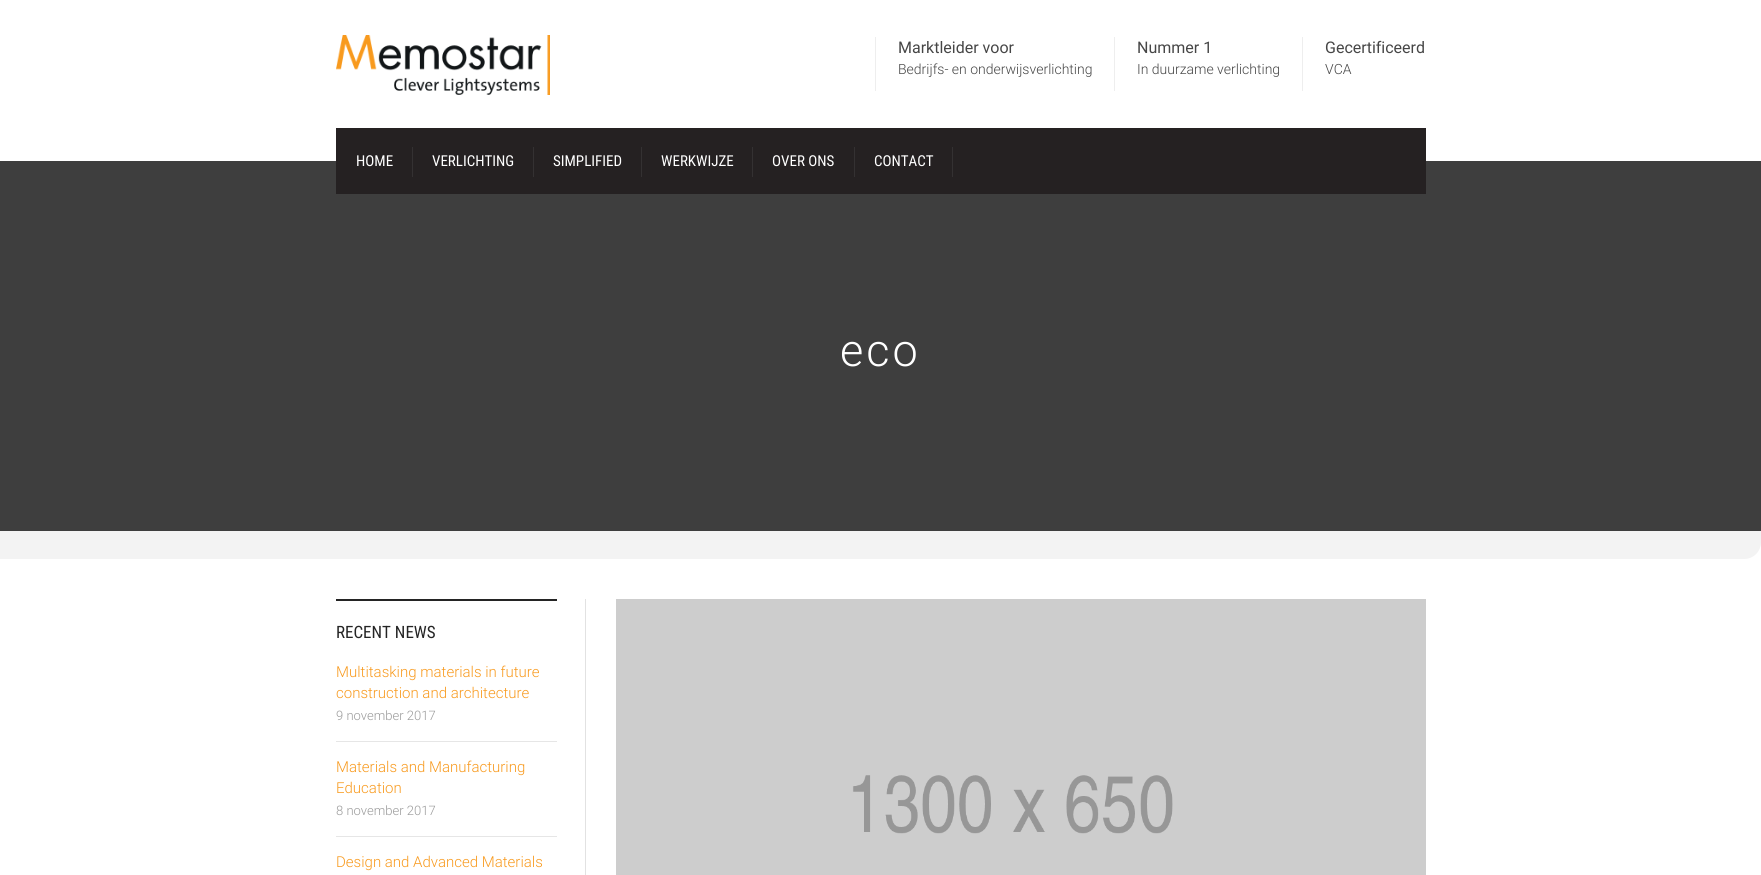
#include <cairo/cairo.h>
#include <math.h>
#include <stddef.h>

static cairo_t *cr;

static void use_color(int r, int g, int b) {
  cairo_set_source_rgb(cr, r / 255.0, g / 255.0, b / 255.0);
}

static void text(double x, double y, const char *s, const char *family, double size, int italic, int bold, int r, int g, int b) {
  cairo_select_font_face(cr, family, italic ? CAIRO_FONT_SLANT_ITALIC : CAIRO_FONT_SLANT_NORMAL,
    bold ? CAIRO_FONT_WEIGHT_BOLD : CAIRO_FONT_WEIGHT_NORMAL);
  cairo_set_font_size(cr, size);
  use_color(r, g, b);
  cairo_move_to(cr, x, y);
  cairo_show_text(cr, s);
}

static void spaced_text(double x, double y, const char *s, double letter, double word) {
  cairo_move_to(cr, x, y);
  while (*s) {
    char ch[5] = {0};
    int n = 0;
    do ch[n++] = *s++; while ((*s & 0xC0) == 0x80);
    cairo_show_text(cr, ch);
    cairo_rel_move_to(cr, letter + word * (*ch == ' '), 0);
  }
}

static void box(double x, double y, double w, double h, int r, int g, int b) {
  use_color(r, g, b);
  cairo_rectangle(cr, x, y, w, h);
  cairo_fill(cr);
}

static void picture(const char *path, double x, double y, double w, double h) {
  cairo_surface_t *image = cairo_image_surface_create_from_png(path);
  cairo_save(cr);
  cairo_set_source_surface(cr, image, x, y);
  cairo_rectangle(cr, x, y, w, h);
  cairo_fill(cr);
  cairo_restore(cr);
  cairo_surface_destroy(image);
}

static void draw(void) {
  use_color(255, 255, 255);
  cairo_paint(cr);
  picture("img_01.png", 336, 35, 214, 60);
  box(875, 37, 1, 54, 238, 238, 238);
  box(1114, 37, 1, 54, 238, 238, 238);
  box(1302, 37, 1, 54, 238, 238, 238);
  use_color(243, 243, 243);
  cairo_new_path(cr);
  cairo_move_to(cr, 0, 514);
  cairo_line_to(cr, 1761, 514);
  cairo_line_to(cr, 1761, 542);
  cairo_curve_to(cr, 1761, 551.5, 1753.5, 559, 1744, 559);
  cairo_line_to(cr, 0, 559);
  cairo_close_path(cr);
  cairo_fill(cr);
  box(0, 161, 1761, 370, 62, 62, 62);
  box(336, 128, 1090, 66, 37, 33, 34);
  box(412, 147, 1, 30, 52, 49, 50);
  box(533, 147, 1, 30, 52, 49, 50);
  box(641, 147, 1, 30, 52, 49, 50);
  box(752, 147, 1, 30, 52, 49, 50);
  box(854, 147, 1, 30, 52, 49, 50);
  box(952, 147, 1, 30, 52, 49, 50);
  box(585, 599, 1, 276, 226, 226, 226);
  box(336, 599, 221, 2, 36, 36, 36);
  box(336, 741, 221, 1, 230, 230, 230);
  box(336, 836, 221, 1, 230, 230, 230);
  picture("img_02.png", 616, 599, 810, 276);
  text(898, 53, "Marktleider voor", "Roboto", 16, 0, 0, 70, 70, 70);
  text(898, 74, "Bedrijfs- en onderwijsverlichting", "Roboto Light", 14, 0, 0, 70, 70, 70);
  text(1137, 53, "Nummer 1", "Roboto", 16, 0, 0, 70, 70, 70);
  text(1137, 74, "In duurzame verlichting", "Roboto Light", 14, 0, 0, 70, 70, 70);
  text(1325, 53, "Gecertificeerd", "Roboto", 16, 0, 0, 70, 70, 70);
  text(1325, 74, "VCA", "Roboto Light", 14, 0, 0, 70, 70, 70);
  text(356, 166, "HOME", "Roboto Condensed", 15, 0, 0, 255, 255, 255);
  text(432, 166, "VERLICHTING", "Roboto Condensed", 15, 0, 0, 255, 255, 255);
  text(553, 166, "SIMPLIFIED", "Roboto Condensed", 15, 0, 0, 255, 255, 255);
  text(661, 166, "WERKWIJZE", "Roboto Condensed", 15, 0, 0, 255, 255, 255);
  text(772, 166, "OVER ONS", "Roboto Condensed", 15, 0, 0, 255, 255, 255);
  text(874, 166, "CONTACT", "Roboto Condensed", 15, 0, 0, 255, 255, 255);
  cairo_select_font_face(cr, "Roboto Light", CAIRO_FONT_SLANT_NORMAL, CAIRO_FONT_WEIGHT_NORMAL);
  cairo_set_font_size(cr, 45);
  spaced_text(840, 366, "eco", 3, 0);
  text(336, 638, "RECENT NEWS", "Roboto Condensed", 17, 0, 0, 36, 36, 36);
  text(336, 677, "Multitasking materials in future", "Roboto Light", 15, 0, 0, 248, 154, 30);
  text(336, 698, "construction and architecture", "Roboto Light", 15, 0, 0, 248, 154, 30);
  text(336, 720, "9 november 2017", "Roboto Light", 13, 0, 0, 154, 154, 154);
  text(336, 772, "Materials and Manufacturing", "Roboto Light", 15, 0, 0, 248, 154, 30);
  text(336, 793, "Education", "Roboto Light", 15, 0, 0, 248, 154, 30);
  text(336, 815, "8 november 2017", "Roboto Light", 13, 0, 0, 154, 154, 154);
  text(336, 867, "Design and Advanced Materials", "Roboto Light", 15, 0, 0, 248, 154, 30);
}

int main(void) {
  cairo_surface_t *surface = cairo_image_surface_create(CAIRO_FORMAT_RGB24, 1761, 875);
  cr = cairo_create(surface);
  cairo_font_options_t *options = cairo_font_options_create();
  cairo_font_options_set_hint_metrics(options, CAIRO_HINT_METRICS_OFF);
  cairo_font_options_set_hint_style(options, CAIRO_HINT_STYLE_NONE);
  cairo_set_font_options(cr, options);
  cairo_set_miter_limit(cr, 4);
  draw();
  cairo_surface_write_to_png(surface, "out.png");
  cairo_font_options_destroy(options);
  cairo_destroy(cr);
  cairo_surface_destroy(surface);
  return 0;
}
